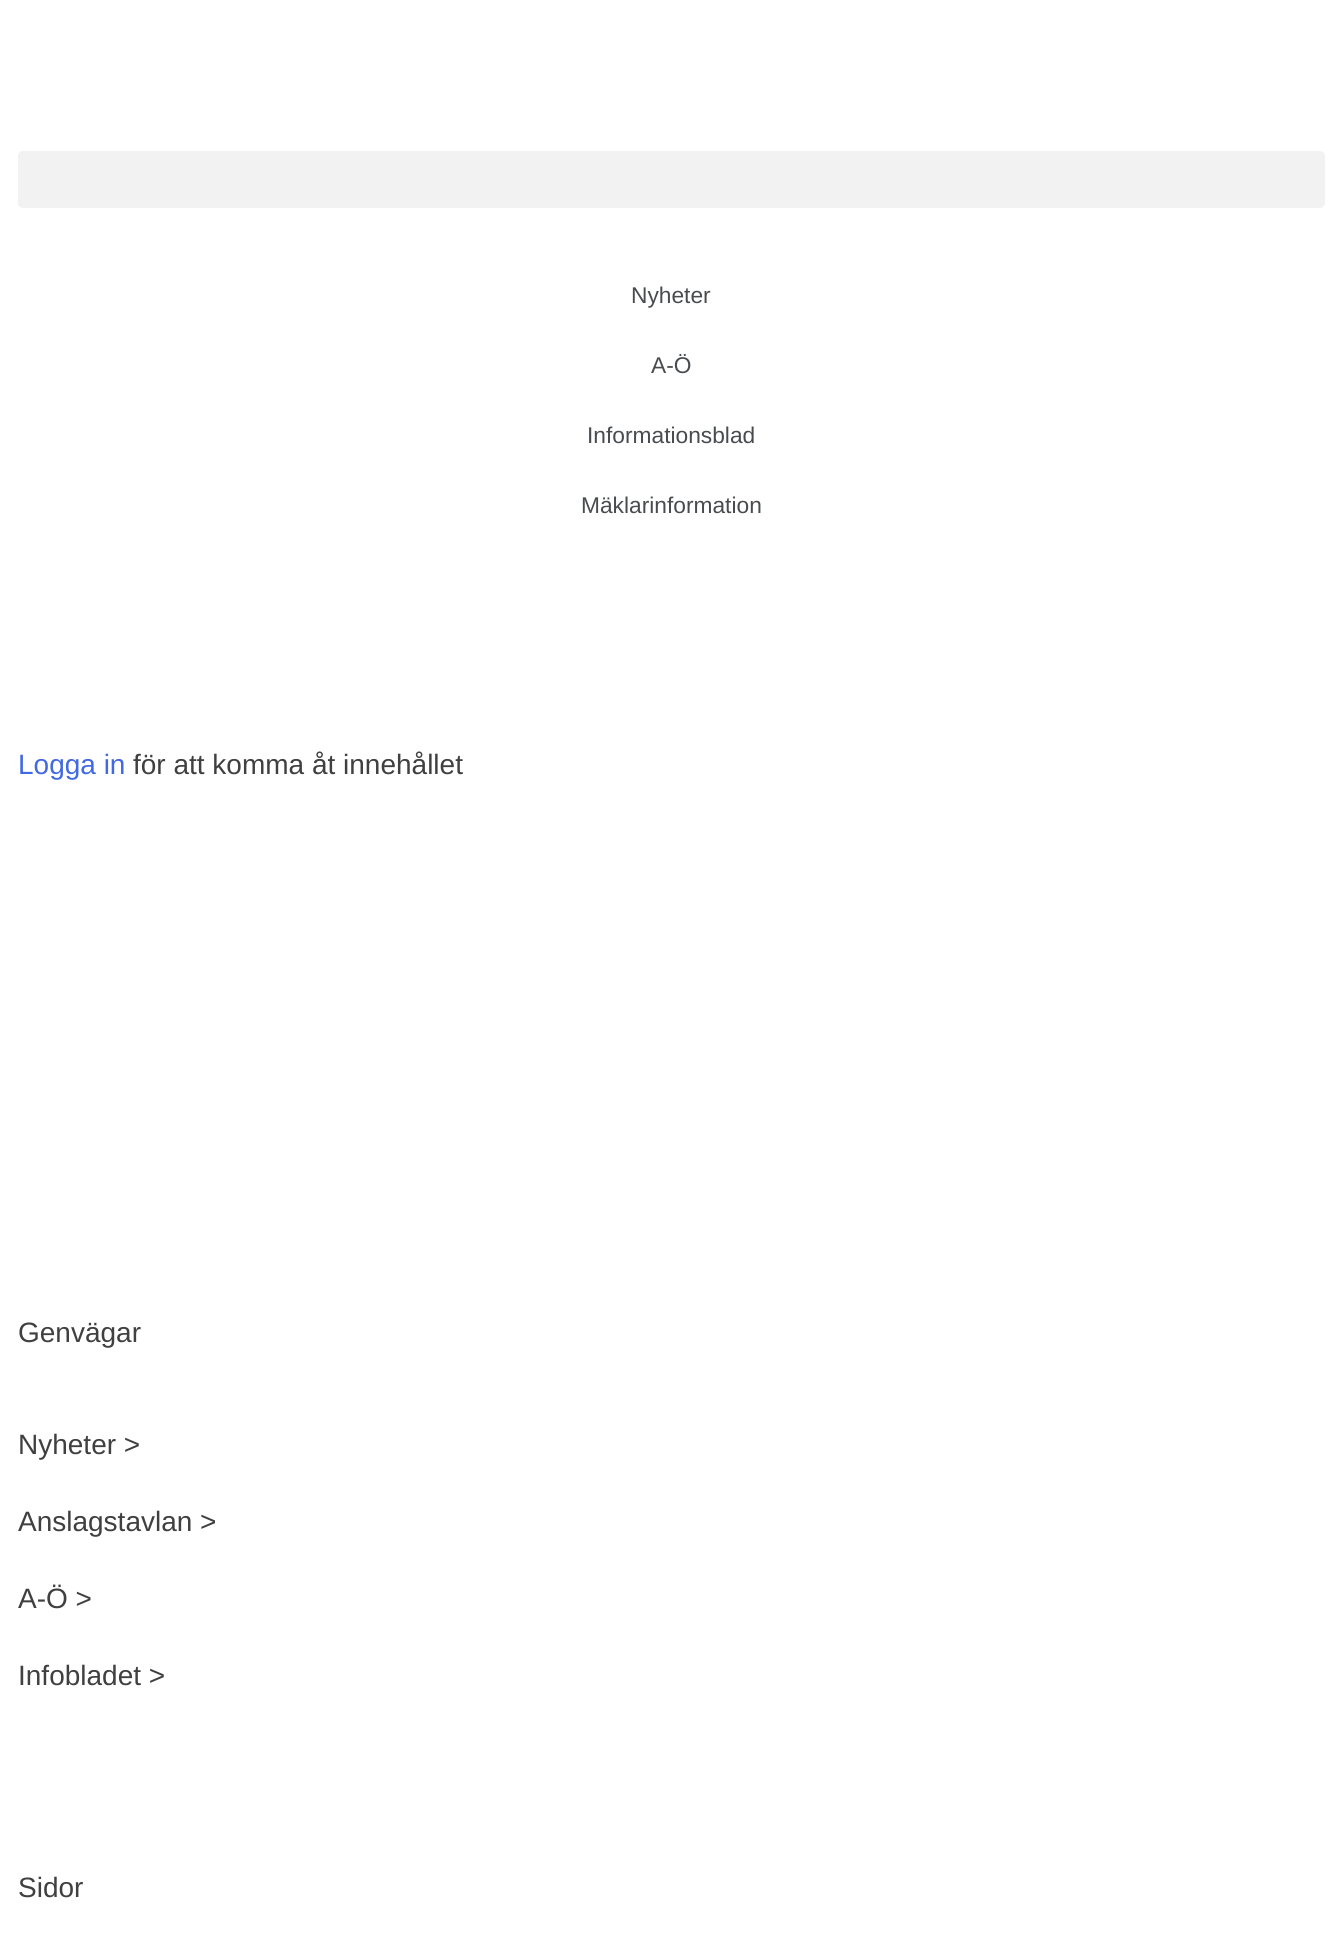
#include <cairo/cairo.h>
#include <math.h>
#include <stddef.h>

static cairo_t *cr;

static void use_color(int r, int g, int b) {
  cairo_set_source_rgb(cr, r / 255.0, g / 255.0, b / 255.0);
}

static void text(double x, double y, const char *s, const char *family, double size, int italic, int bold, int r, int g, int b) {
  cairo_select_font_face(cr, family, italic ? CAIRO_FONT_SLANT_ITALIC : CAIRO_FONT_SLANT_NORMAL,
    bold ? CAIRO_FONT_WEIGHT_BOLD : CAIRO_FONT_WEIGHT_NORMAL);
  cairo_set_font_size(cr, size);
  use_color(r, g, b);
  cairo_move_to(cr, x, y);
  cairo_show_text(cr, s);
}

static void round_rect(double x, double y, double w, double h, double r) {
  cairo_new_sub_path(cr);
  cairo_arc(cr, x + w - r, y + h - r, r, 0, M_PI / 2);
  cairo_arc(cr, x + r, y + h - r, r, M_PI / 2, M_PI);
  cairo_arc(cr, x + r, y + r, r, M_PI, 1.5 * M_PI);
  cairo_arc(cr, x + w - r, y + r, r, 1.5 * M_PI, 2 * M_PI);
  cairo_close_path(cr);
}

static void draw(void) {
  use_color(255, 255, 255);
  cairo_paint(cr);
  use_color(242, 242, 242);
  round_rect(18, 151, 1307, 57, 5);
  cairo_fill(cr);
  text(631, 303, "Nyheter", "Liberation Sans", 22.75, 0, 0, 73, 76, 79);
  text(651, 373, "A-Ö", "Liberation Sans", 22.75, 0, 0, 73, 76, 79);
  text(587, 443, "Informationsblad", "Liberation Sans", 22.75, 0, 0, 73, 76, 79);
  text(581, 513, "Mäklarinformation", "Liberation Sans", 22.75, 0, 0, 73, 76, 79);
  text(18, 774, "Logga in", "Liberation Sans", 28, 0, 0, 65, 105, 225);
  text(133, 774, "för att komma åt innehållet", "Liberation Sans", 28, 0, 0, 64, 64, 64);
  text(18, 1342, "Genvägar", "Liberation Sans", 28, 0, 0, 64, 64, 64);
  text(18, 1454, "Nyheter >", "Liberation Sans", 28, 0, 0, 64, 64, 64);
  text(18, 1531, "Anslagstavlan >", "Liberation Sans", 28, 0, 0, 64, 64, 64);
  text(18, 1608, "A-Ö >", "Liberation Sans", 28, 0, 0, 64, 64, 64);
  text(18, 1685, "Infobladet >", "Liberation Sans", 28, 0, 0, 64, 64, 64);
  text(18, 1897, "Sidor", "Liberation Sans", 28, 0, 0, 64, 64, 64);
}

int main(void) {
  cairo_surface_t *surface = cairo_image_surface_create(CAIRO_FORMAT_RGB24, 1342, 1945);
  cr = cairo_create(surface);
  cairo_font_options_t *options = cairo_font_options_create();
  cairo_font_options_set_hint_metrics(options, CAIRO_HINT_METRICS_OFF);
  cairo_font_options_set_hint_style(options, CAIRO_HINT_STYLE_NONE);
  cairo_set_font_options(cr, options);
  cairo_set_miter_limit(cr, 4);
  draw();
  cairo_surface_write_to_png(surface, "out.png");
  cairo_font_options_destroy(options);
  cairo_destroy(cr);
  cairo_surface_destroy(surface);
  return 0;
}
